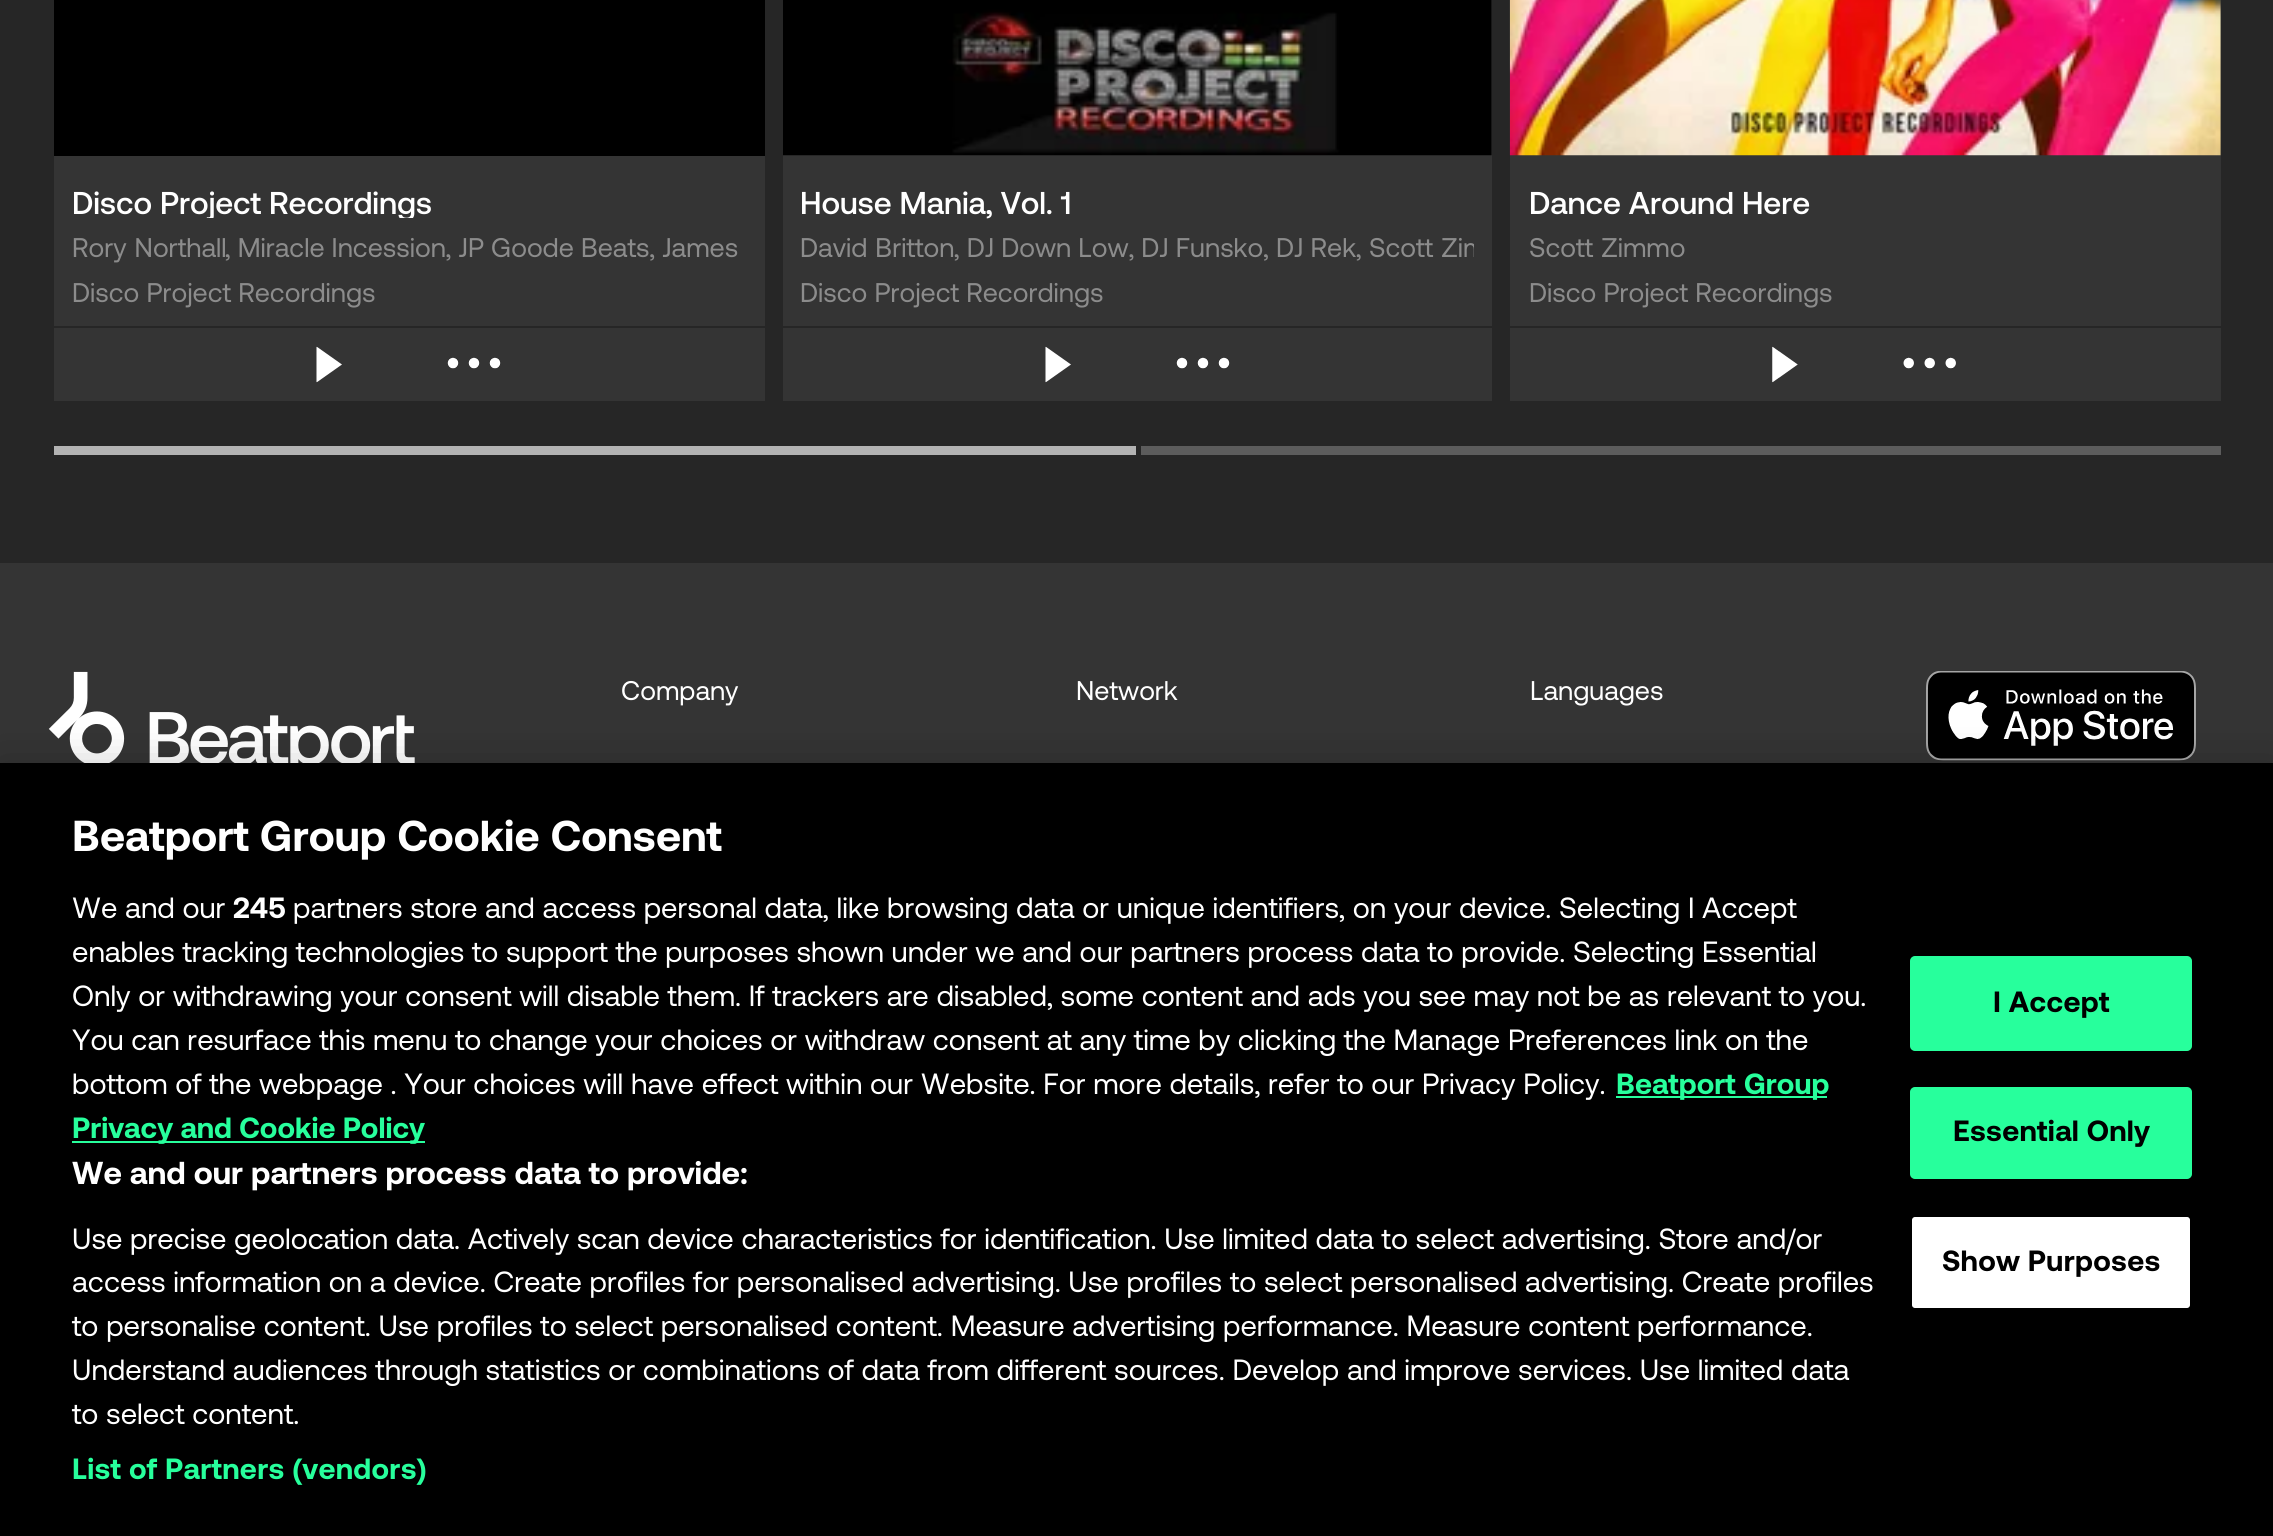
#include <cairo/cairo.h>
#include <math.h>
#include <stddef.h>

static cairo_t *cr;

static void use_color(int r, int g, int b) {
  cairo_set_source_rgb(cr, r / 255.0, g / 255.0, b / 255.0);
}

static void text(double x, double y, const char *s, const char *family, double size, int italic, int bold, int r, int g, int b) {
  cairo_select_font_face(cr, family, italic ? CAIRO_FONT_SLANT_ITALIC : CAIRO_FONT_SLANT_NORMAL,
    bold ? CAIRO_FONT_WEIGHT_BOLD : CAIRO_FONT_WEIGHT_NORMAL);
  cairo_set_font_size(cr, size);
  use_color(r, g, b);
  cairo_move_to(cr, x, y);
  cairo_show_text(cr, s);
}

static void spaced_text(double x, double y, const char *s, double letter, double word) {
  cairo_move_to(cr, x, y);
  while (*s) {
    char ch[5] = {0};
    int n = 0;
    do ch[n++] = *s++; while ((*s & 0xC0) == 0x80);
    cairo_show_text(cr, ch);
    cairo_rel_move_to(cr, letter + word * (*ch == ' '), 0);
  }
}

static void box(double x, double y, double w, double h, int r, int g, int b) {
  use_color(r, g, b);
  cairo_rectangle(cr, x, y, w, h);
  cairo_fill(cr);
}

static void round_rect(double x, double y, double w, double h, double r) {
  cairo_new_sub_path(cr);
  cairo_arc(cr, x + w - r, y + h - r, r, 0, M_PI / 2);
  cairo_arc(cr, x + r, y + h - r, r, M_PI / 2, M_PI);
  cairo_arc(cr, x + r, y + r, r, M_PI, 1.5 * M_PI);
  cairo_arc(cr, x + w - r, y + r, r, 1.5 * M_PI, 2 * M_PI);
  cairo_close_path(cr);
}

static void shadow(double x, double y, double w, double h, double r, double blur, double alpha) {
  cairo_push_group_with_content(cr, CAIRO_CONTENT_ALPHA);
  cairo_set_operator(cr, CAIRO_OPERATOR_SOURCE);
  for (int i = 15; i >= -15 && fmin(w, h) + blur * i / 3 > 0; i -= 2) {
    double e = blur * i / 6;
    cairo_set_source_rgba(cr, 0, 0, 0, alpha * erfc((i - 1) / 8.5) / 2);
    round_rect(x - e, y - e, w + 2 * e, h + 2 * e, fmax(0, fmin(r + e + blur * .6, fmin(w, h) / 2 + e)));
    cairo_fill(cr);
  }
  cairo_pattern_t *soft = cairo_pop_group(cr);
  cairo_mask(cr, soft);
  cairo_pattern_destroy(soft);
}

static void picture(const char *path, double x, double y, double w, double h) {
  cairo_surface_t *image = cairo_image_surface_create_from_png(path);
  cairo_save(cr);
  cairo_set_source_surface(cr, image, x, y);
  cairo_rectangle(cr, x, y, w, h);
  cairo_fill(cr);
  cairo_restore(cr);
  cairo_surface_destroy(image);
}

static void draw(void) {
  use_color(38, 38, 38);
  cairo_paint(cr);
  box(54, 156, 711, 245, 52, 52, 52);
  box(54, 0, 711, 156, 0, 0, 0);
  box(54, 326, 711, 2, 38, 38, 38);
  picture("img_01.png", 316, 346, 26, 37);
  picture("img_02.png", 447, 357, 54, 12);
  box(783, 0, 709, 401, 52, 52, 52);
  picture("img_03.png", 783, 0, 709, 156);
  box(783, 326, 709, 2, 38, 38, 38);
  picture("img_01.png", 1045, 346, 26, 37);
  picture("img_02.png", 1176, 357, 54, 12);
  box(1510, 0, 711, 401, 52, 52, 52);
  picture("img_04.png", 1509, 0, 712, 156);
  box(1510, 326, 711, 2, 38, 38, 38);
  picture("img_05.png", 1772, 346, 26, 37);
  picture("img_06.png", 1903, 357, 53, 12);
  box(54, 446, 1082, 9, 179, 179, 179);
  box(1141, 446, 1080, 9, 92, 92, 92);
  box(0, 563, 2273, 200, 52, 52, 52);
  picture("img_07.png", 48, 671, 367, 92);
  picture("img_08.png", 1926, 671, 270, 90);
  use_color(0, 0, 0);
  shadow(0, 763, 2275, 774, 0, 20, 0.2);
  box(0, 763, 2273, 773, 0, 0, 0);
  box(1616, 1096, 211, 2, 39, 255, 156);
  box(72, 1141, 353, 2, 39, 255, 156);
  round_rect(1911, 957, 280, 93, 4);
  cairo_fill_preserve(cr);
  cairo_stroke(cr);
  round_rect(1911, 1088, 280, 90, 4);
  cairo_fill_preserve(cr);
  cairo_stroke(cr);
  use_color(255, 255, 255);
  round_rect(1911, 1216, 280, 93, 4);
  cairo_fill_preserve(cr);
  use_color(0, 0, 0);
  cairo_stroke(cr);
  cairo_save(cr);
  cairo_rectangle(cr, 72, 173, 360, 45);
  cairo_clip(cr);
  cairo_select_font_face(cr, "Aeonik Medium", CAIRO_FONT_SLANT_NORMAL, CAIRO_FONT_WEIGHT_NORMAL);
  cairo_set_font_size(cr, 31.5);
  use_color(255, 255, 255);
  spaced_text(72, 214, "Disco Project Recordings", -0.1, 0);
  cairo_restore(cr);
  cairo_select_font_face(cr, "Aeonik", CAIRO_FONT_SLANT_NORMAL, CAIRO_FONT_WEIGHT_NORMAL);
  cairo_set_font_size(cr, 27);
  use_color(140, 140, 140);
  spaced_text(72, 257, "Rory Northall", 0, 1);
  text(225, 257, ", Miracle Incession, JP Goode Beats, James", "Aeonik", 27, 0, 0, 140, 140, 140);
  text(72, 302, "Disco Project Recordings", "Aeonik", 27, 0, 0, 140, 140, 140);
  cairo_select_font_face(cr, "Aeonik Medium", CAIRO_FONT_SLANT_NORMAL, CAIRO_FONT_WEIGHT_NORMAL);
  cairo_set_font_size(cr, 31.5);
  use_color(255, 255, 255);
  spaced_text(800, 214, "House Mania, Vol. 1", -0.1, 0);
  cairo_select_font_face(cr, "Aeonik", CAIRO_FONT_SLANT_NORMAL, CAIRO_FONT_WEIGHT_NORMAL);
  cairo_set_font_size(cr, 27);
  use_color(140, 140, 140);
  spaced_text(800, 257, "David Britton", 0, 1);
  text(954, 257, ", DJ Down Low, DJ Funsko, DJ Rek,", "Aeonik", 27, 0, 0, 140, 140, 140);
  cairo_save(cr);
  cairo_rectangle(cr, 801, 227, 673, 36);
  cairo_clip(cr);
  spaced_text(1369, 257, "Scott Zim", 0, 1);
  cairo_restore(cr);
  text(800, 302, "Disco Project Recordings", "Aeonik", 27, 0, 0, 140, 140, 140);
  cairo_select_font_face(cr, "Aeonik Medium", CAIRO_FONT_SLANT_NORMAL, CAIRO_FONT_WEIGHT_NORMAL);
  cairo_set_font_size(cr, 31.5);
  use_color(255, 255, 255);
  spaced_text(1529, 214, "Dance Around Here", -0.1, 0);
  cairo_select_font_face(cr, "Aeonik", CAIRO_FONT_SLANT_NORMAL, CAIRO_FONT_WEIGHT_NORMAL);
  cairo_set_font_size(cr, 27);
  use_color(140, 140, 140);
  spaced_text(1529, 257, "Scott Zimmo", 0, 1);
  text(1529, 302, "Disco Project Recordings", "Aeonik", 27, 0, 0, 140, 140, 140);
  text(621, 700, "Company", "Aeonik", 27, 0, 0, 255, 255, 255);
  text(1076, 700, "Network", "Aeonik", 27, 0, 0, 255, 255, 255);
  text(1530, 700, "Languages", "Aeonik", 27, 0, 0, 255, 255, 255);
  cairo_select_font_face(cr, "Aeonik", CAIRO_FONT_SLANT_NORMAL, CAIRO_FONT_WEIGHT_BOLD);
  cairo_set_font_size(cr, 43.25);
  spaced_text(72, 851, "Beatport Group Cookie Consent", 0, 0.5);
  text(72, 918, "We and our", "Aeonik", 29.27, 0, 0, 255, 255, 255);
  text(233, 918, "245", "Aeonik", 29.27, 0, 1, 255, 255, 255);
  text(293, 918, "partners store and access personal data, like browsing data or unique identifiers, on your device. Selecting I Accept", "Aeonik", 29.27, 0, 0, 255, 255, 255);
  text(72, 962, "enables tracking technologies to support the purposes shown under we and our partners process data to provide. Selecting Essential", "Aeonik", 29.27, 0, 0, 255, 255, 255);
  text(72, 1006, "Only or withdrawing your consent will disable them. If trackers are disabled, some content and ads you see may not be as relevant to you.", "Aeonik", 29.27, 0, 0, 255, 255, 255);
  text(72, 1050, "You can resurface this menu to change your choices or withdraw consent at any time by clicking the Manage Preferences link on the", "Aeonik", 29.27, 0, 0, 255, 255, 255);
  text(72, 1094, "bottom of the webpage . Your choices will have effect within our Website. For more details, refer to our Privacy Policy.", "Aeonik", 29.27, 0, 0, 255, 255, 255);
  cairo_select_font_face(cr, "Aeonik", CAIRO_FONT_SLANT_NORMAL, CAIRO_FONT_WEIGHT_BOLD);
  use_color(39, 255, 156);
  spaced_text(1616, 1094, "Beatport Group", 0, 1);
  text(72, 1138, "Privacy and Cookie Policy", "Aeonik", 29.27, 0, 1, 39, 255, 156);
  cairo_set_font_size(cr, 31.7);
  use_color(255, 255, 255);
  spaced_text(72, 1184, "We and our partners process data to provide:", 0, 0.1);
  text(72, 1249, "Use precise geolocation data. Actively scan device characteristics for identification. Use limited data to select advertising. Store and/or", "Aeonik", 29.27, 0, 0, 255, 255, 255);
  text(72, 1292, "access information on a device. Create profiles for personalised advertising. Use profiles to select personalised advertising. Create profiles", "Aeonik", 29.27, 0, 0, 255, 255, 255);
  spaced_text(72, 1336, "to personalise content. Use profiles to select personalised content. Measure advertising performance. Measure content performance.", 0, 0.1);
  text(72, 1380, "Understand audiences through statistics or combinations of data from different sources. Develop and improve services. Use limited data", "Aeonik", 29.27, 0, 0, 255, 255, 255);
  text(72, 1424, "to select content.", "Aeonik", 29.27, 0, 0, 255, 255, 255);
  cairo_select_font_face(cr, "Aeonik", CAIRO_FONT_SLANT_NORMAL, CAIRO_FONT_WEIGHT_BOLD);
  use_color(39, 255, 156);
  spaced_text(72, 1479, "List of Partners (vendors)", 0.3, 0);
  use_color(0, 0, 0);
  spaced_text(1993, 1012, "I Accept", 0.3, 0);
  spaced_text(1953, 1141, "Essential Only", 0.3, 0);
  spaced_text(1942, 1271, "Show Purposes", 0.3, 0);
}

int main(void) {
  cairo_surface_t *surface = cairo_image_surface_create(CAIRO_FORMAT_RGB24, 2273, 1536);
  cr = cairo_create(surface);
  cairo_font_options_t *options = cairo_font_options_create();
  cairo_font_options_set_hint_metrics(options, CAIRO_HINT_METRICS_OFF);
  cairo_font_options_set_hint_style(options, CAIRO_HINT_STYLE_NONE);
  cairo_set_font_options(cr, options);
  cairo_set_miter_limit(cr, 4);
  draw();
  cairo_surface_write_to_png(surface, "out.png");
  cairo_font_options_destroy(options);
  cairo_destroy(cr);
  cairo_surface_destroy(surface);
  return 0;
}
